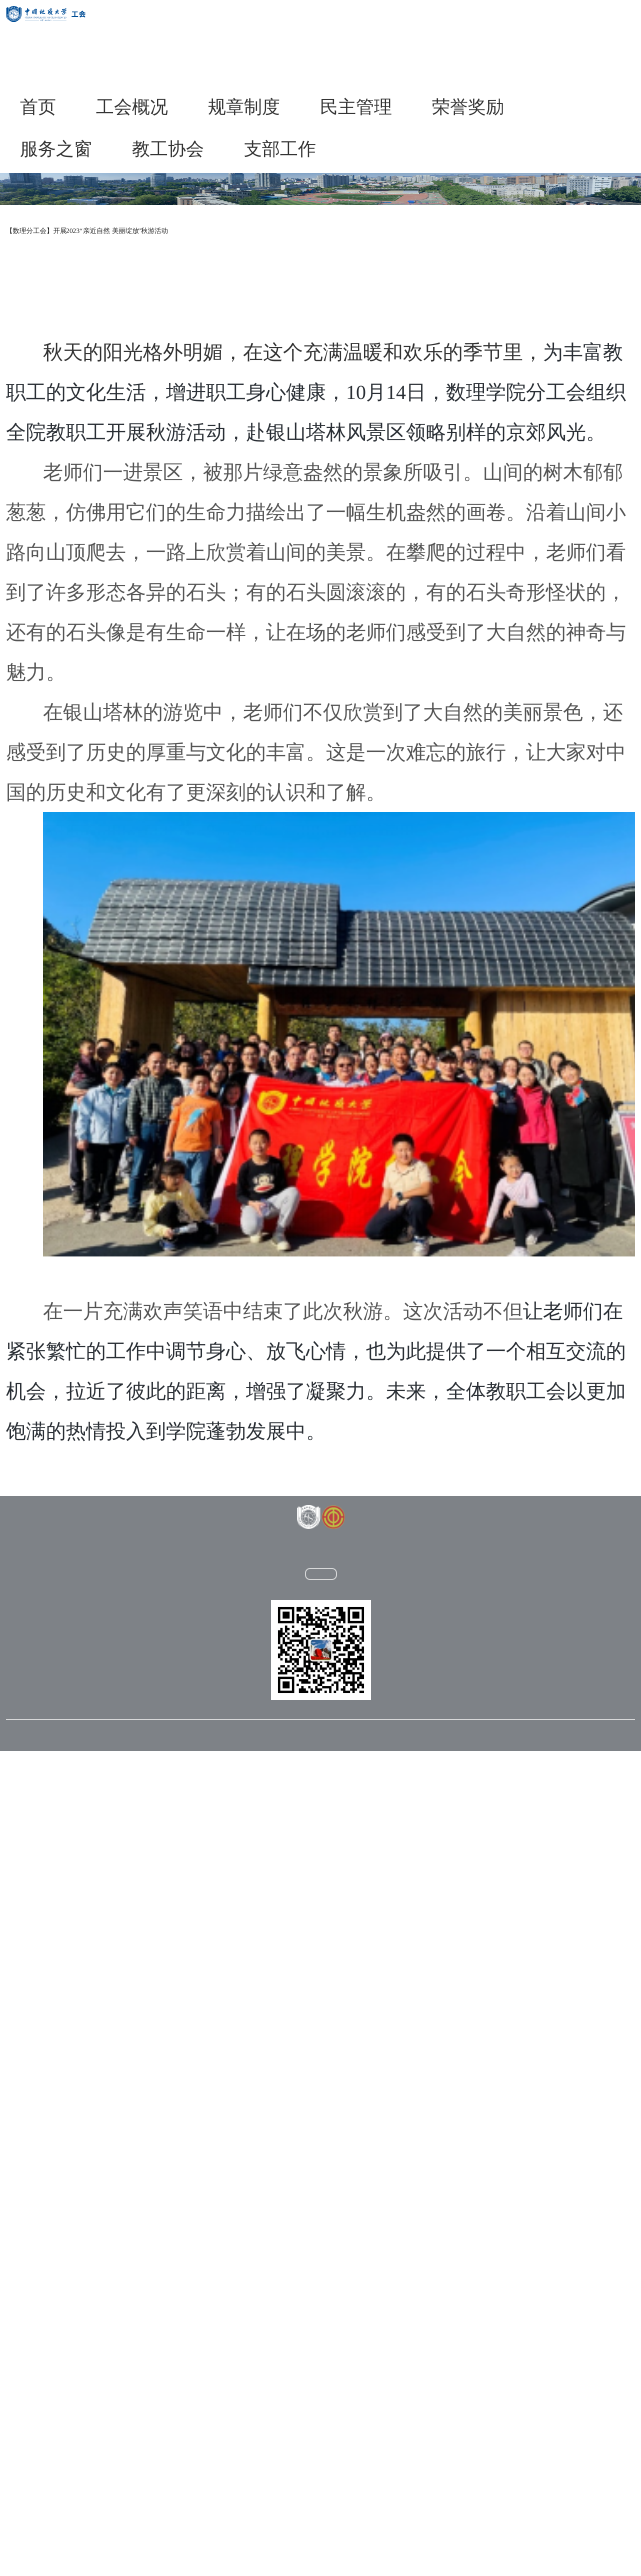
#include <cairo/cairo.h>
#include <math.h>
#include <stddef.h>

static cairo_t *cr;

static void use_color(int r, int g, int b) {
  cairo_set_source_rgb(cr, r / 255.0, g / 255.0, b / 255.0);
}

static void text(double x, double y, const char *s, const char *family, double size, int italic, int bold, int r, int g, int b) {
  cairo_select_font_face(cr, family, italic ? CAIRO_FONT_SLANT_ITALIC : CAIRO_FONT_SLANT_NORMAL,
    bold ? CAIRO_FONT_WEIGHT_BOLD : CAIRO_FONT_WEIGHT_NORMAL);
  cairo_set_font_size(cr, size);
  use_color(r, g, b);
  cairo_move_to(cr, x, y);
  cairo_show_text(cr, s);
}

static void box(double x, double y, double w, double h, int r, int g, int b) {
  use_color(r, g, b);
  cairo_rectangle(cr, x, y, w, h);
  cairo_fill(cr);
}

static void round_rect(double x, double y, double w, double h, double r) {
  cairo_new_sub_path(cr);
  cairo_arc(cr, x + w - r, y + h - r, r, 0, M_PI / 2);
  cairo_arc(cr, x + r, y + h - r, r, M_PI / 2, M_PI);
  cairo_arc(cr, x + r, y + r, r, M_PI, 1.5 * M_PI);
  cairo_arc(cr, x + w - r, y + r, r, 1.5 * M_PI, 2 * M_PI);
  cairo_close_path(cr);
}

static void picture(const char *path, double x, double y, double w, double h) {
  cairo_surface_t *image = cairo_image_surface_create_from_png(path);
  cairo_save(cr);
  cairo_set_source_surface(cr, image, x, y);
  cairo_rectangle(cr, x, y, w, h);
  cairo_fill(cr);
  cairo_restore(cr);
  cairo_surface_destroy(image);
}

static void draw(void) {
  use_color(255, 255, 255);
  cairo_paint(cr);
  picture("img_01.png", 6, 6, 80, 16);
  picture("img_02.png", 0, 173, 641, 32);
  picture("img_03.png", 43, 812, 592, 445);
  box(0, 1496, 641, 255, 126, 130, 135);
  picture("img_04.png", 297, 1505, 48, 24);
  round_rect(305.5, 1568.5, 31, 11, 4.5);
  use_color(215, 216, 217);
  cairo_set_line_width(cr, 1);
  cairo_stroke(cr);
  picture("img_05.png", 271, 1600, 100, 100);
  box(6, 1719, 629, 1, 215, 216, 217);
  text(20, 113, "首页", "WenQuanYi Zen Hei Medium", 18, 0, 0, 51, 51, 51);
  text(96, 113, "工会概况", "WenQuanYi Zen Hei Medium", 18, 0, 0, 51, 51, 51);
  text(208, 113, "规章制度", "WenQuanYi Zen Hei Medium", 18, 0, 0, 51, 51, 51);
  text(320, 113, "民主管理", "WenQuanYi Zen Hei Medium", 18, 0, 0, 51, 51, 51);
  text(432, 113, "荣誉奖励", "WenQuanYi Zen Hei Medium", 18, 0, 0, 51, 51, 51);
  text(20, 155, "服务之窗", "WenQuanYi Zen Hei Medium", 18, 0, 0, 51, 51, 51);
  text(132, 155, "教工协会", "WenQuanYi Zen Hei Medium", 18, 0, 0, 51, 51, 51);
  text(244, 155, "支部工作", "WenQuanYi Zen Hei Medium", 18, 0, 0, 51, 51, 51);
  text(6, 233, "【数理分工会】开展", "WenQuanYi Zen Hei Medium", 6.75, 0, 0, 34, 34, 34);
  text(66, 233, "2023“", "Liberation Serif", 6.75, 0, 0, 34, 34, 34);
  text(83, 233, "亲近自然 美丽绽放", "WenQuanYi Zen Hei Medium", 6.75, 0, 0, 34, 34, 34);
  text(138, 233, "”", "Liberation Serif", 6.75, 0, 0, 34, 34, 34);
  text(141, 233, "秋游活动", "WenQuanYi Zen Hei Medium", 6.75, 0, 0, 34, 34, 34);
  text(43, 359, "秋天的阳光格外明媚，在这个充满温暖和欢乐的季节里，", "WenQuanYi Zen Hei Medium", 20, 0, 0, 51, 51, 51);
  text(543, 359, "为丰富教", "WenQuanYi Zen Hei Medium", 20, 0, 0, 42, 47, 53);
  text(6, 399, "职工的文化生活，增进职工身心健康，", "WenQuanYi Zen Hei Medium", 20, 0, 0, 42, 47, 53);
  text(346, 399, "10", "Liberation Serif", 20, 0, 0, 42, 47, 53);
  text(366, 399, "月", "WenQuanYi Zen Hei Medium", 20, 0, 0, 42, 47, 53);
  text(386, 399, "14", "Liberation Serif", 20, 0, 0, 42, 47, 53);
  text(406, 399, "日，数理学院分工会组织", "WenQuanYi Zen Hei Medium", 20, 0, 0, 42, 47, 53);
  text(6, 439, "全院教职工开展秋游活动，赴银山塔林风景区领略别样的京郊风光。", "WenQuanYi Zen Hei Medium", 20, 0, 0, 42, 47, 53);
  text(43, 479, "老师们一进景区，被那片绿意盎然的景象所吸引。山间的树木郁郁", "WenQuanYi Zen Hei Medium", 20, 0, 0, 85, 85, 85);
  text(6, 519, "葱葱，仿佛用它们的生命力描绘出了一幅生机盎然的画卷。沿着山间小", "WenQuanYi Zen Hei Medium", 20, 0, 0, 85, 85, 85);
  text(6, 559, "路向山顶爬去，一路上欣赏着山间的美景。在攀爬的过程中，老师们看", "WenQuanYi Zen Hei Medium", 20, 0, 0, 85, 85, 85);
  text(6, 599, "到了许多形态各异的石头；有的石头圆滚滚的，有的石头奇形怪状的，", "WenQuanYi Zen Hei Medium", 20, 0, 0, 85, 85, 85);
  text(6, 639, "还有的石头像是有生命一样，让在场的老师们感受到了大自然的神奇与", "WenQuanYi Zen Hei Medium", 20, 0, 0, 85, 85, 85);
  text(6, 679, "魅力。", "WenQuanYi Zen Hei Medium", 20, 0, 0, 85, 85, 85);
  text(43, 719, "在银山塔林的游览中，老师们不仅欣赏到了大自然的美丽景色，还", "WenQuanYi Zen Hei Medium", 20, 0, 0, 85, 85, 85);
  text(6, 759, "感受到了历史的厚重与文化的丰富。这是一次难忘的旅行，让大家对中", "WenQuanYi Zen Hei Medium", 20, 0, 0, 85, 85, 85);
  text(6, 799, "国的历史和文化有了更深刻的认识和了解。", "WenQuanYi Zen Hei Medium", 20, 0, 0, 85, 85, 85);
  text(43, 1318, "在一片充满欢声笑语中结束了此次秋游。这次活动不但", "WenQuanYi Zen Hei Medium", 20, 0, 0, 85, 85, 85);
  text(523, 1318, "让老师们在", "WenQuanYi Zen Hei Medium", 20, 0, 0, 42, 47, 53);
  text(6, 1358, "紧张繁忙的工作中调节身心、放飞心情，也为此提供了一个相互交流的", "WenQuanYi Zen Hei Medium", 20, 0, 0, 42, 47, 53);
  text(6, 1398, "机会，拉近了彼此的距离，增强了凝聚力。未来，全体教职工会以更加", "WenQuanYi Zen Hei Medium", 20, 0, 0, 42, 47, 53);
  text(6, 1438, "饱满的热情投入到学院蓬勃发展中。", "WenQuanYi Zen Hei Medium", 20, 0, 0, 42, 47, 53);
}

int main(void) {
  cairo_surface_t *surface = cairo_image_surface_create(CAIRO_FORMAT_RGB24, 641, 2576);
  cr = cairo_create(surface);
  cairo_font_options_t *options = cairo_font_options_create();
  cairo_font_options_set_hint_metrics(options, CAIRO_HINT_METRICS_OFF);
  cairo_font_options_set_hint_style(options, CAIRO_HINT_STYLE_NONE);
  cairo_set_font_options(cr, options);
  cairo_set_miter_limit(cr, 4);
  draw();
  cairo_surface_write_to_png(surface, "out.png");
  cairo_font_options_destroy(options);
  cairo_destroy(cr);
  cairo_surface_destroy(surface);
  return 0;
}
